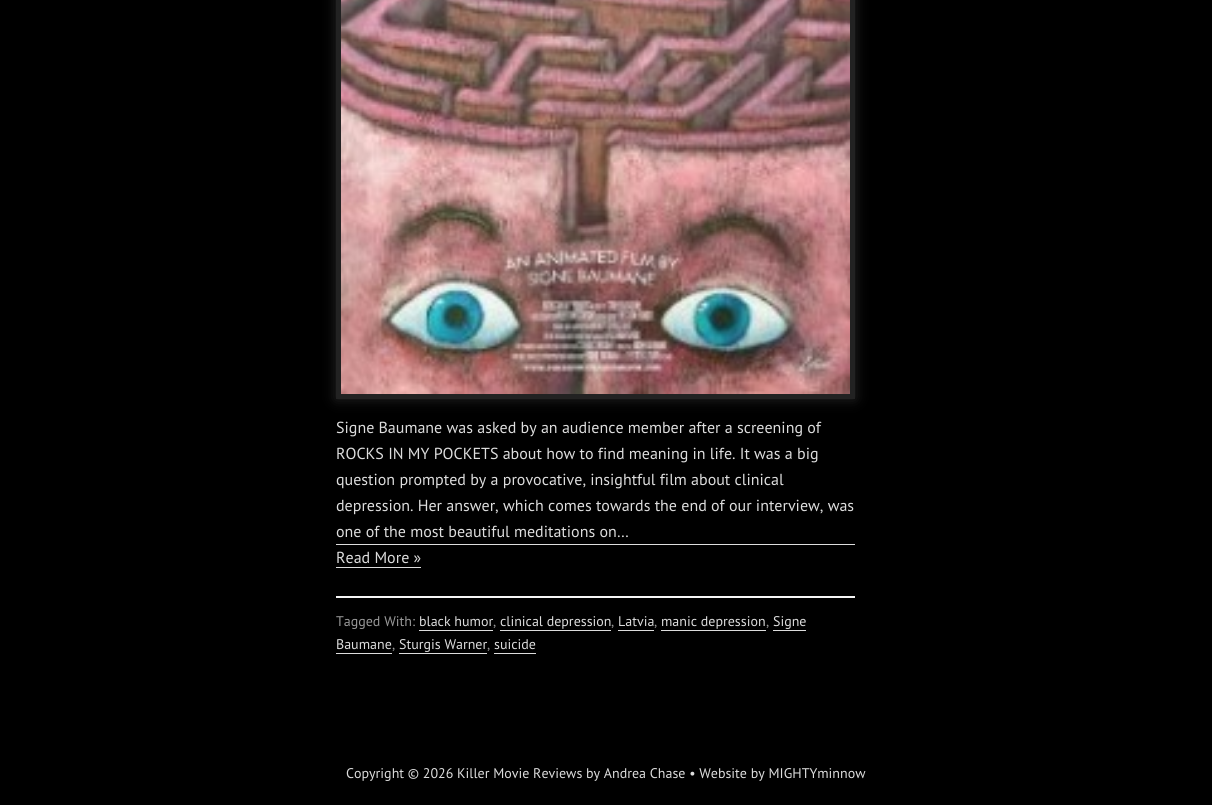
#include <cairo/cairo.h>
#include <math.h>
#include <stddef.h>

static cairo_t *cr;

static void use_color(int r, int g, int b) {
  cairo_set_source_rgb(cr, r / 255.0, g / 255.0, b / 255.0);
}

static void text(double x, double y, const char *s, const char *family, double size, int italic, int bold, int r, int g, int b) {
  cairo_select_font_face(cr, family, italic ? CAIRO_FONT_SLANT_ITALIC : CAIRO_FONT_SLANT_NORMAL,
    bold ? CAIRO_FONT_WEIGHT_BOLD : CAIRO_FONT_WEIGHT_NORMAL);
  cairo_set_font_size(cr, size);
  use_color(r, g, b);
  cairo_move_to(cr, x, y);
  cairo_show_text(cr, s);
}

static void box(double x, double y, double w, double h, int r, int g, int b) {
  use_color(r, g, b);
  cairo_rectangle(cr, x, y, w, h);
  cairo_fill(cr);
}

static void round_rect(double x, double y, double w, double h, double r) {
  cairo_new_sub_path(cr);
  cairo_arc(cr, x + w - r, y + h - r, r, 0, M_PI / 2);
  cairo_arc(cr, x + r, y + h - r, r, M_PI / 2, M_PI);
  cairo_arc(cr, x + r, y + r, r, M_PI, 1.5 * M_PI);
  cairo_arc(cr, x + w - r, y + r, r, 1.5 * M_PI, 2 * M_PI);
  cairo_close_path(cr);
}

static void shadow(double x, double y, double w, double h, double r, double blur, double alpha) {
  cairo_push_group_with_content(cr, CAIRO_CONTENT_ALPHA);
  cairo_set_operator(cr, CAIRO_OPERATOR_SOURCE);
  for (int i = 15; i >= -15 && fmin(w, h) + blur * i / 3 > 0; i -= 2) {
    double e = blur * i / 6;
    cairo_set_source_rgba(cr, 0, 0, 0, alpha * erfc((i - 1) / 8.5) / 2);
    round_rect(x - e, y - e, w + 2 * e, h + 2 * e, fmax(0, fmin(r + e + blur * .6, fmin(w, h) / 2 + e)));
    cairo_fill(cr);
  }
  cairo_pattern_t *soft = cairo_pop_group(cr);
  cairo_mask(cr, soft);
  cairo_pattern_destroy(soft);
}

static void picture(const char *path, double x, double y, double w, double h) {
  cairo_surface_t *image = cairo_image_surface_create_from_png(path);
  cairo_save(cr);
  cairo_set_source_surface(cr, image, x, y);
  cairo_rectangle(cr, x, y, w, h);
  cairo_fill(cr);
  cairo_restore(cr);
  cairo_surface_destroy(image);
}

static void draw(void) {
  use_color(0, 0, 0);
  cairo_paint(cr);
  use_color(38, 38, 38);
  shadow(336, -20, 519, 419, 0, 6.5, 1);
  box(336, 0, 519, 399, 34, 34, 34);
  picture("img_01.png", 341, 0, 509, 394);
  box(336, 544, 519, 1, 221, 221, 221);
  box(336, 567, 85, 1, 221, 221, 221);
  box(336, 596, 519, 2, 245, 245, 245);
  box(419, 630, 74, 1, 221, 221, 221);
  box(500, 630, 111, 1, 221, 221, 221);
  box(618, 630, 36, 1, 221, 221, 221);
  box(661, 630, 105, 1, 221, 221, 221);
  box(773, 630, 33, 1, 221, 221, 221);
  box(336, 653, 56, 1, 221, 221, 221);
  box(399, 653, 88, 1, 221, 221, 221);
  box(494, 653, 42, 1, 221, 221, 221);
  text(336, 433, "Signe Baumane was asked by an audience member after a screening of", "PT Sans", 16, 0, 0, 221, 221, 221);
  text(336, 459, "ROCKS IN MY POCKETS about how to find meaning in life. It was a big", "PT Sans", 16, 0, 0, 221, 221, 221);
  text(336, 485, "question prompted by a provocative, insightful film about clinical", "PT Sans", 16, 0, 0, 221, 221, 221);
  text(336, 511, "depression. Her answer, which comes towards the end of our interview, was", "PT Sans", 16, 0, 0, 221, 221, 221);
  text(336, 537, "one of the most beautiful meditations on…", "PT Sans", 16, 0, 0, 221, 221, 221);
  text(336, 563, "Read More »", "PT Sans", 16, 0, 0, 221, 221, 221);
  text(336, 626, "Tagged With:", "PT Sans", 14, 0, 0, 153, 153, 153);
  text(419, 626, "black humor", "PT Sans", 14, 0, 0, 221, 221, 221);
  text(493, 626, ",", "PT Sans", 14, 0, 0, 153, 153, 153);
  text(500, 626, "clinical depression", "PT Sans", 14, 0, 0, 221, 221, 221);
  text(611, 626, ",", "PT Sans", 14, 0, 0, 153, 153, 153);
  text(618, 626, "Latvia", "PT Sans", 14, 0, 0, 221, 221, 221);
  text(654, 626, ",", "PT Sans", 14, 0, 0, 153, 153, 153);
  text(661, 626, "manic depression", "PT Sans", 14, 0, 0, 221, 221, 221);
  text(766, 626, ",", "PT Sans", 14, 0, 0, 153, 153, 153);
  text(773, 626, "Signe", "PT Sans", 14, 0, 0, 221, 221, 221);
  text(336, 649, "Baumane", "PT Sans", 14, 0, 0, 221, 221, 221);
  text(392, 649, ",", "PT Sans", 14, 0, 0, 153, 153, 153);
  text(399, 649, "Sturgis Warner", "PT Sans", 14, 0, 0, 221, 221, 221);
  text(487, 649, ",", "PT Sans", 14, 0, 0, 153, 153, 153);
  text(494, 649, "suicide", "PT Sans", 14, 0, 0, 221, 221, 221);
  text(346, 778, "Copyright © 2026 Killer Movie Reviews by Andrea Chase • Website by MIGHTYminnow", "PT Sans", 14, 0, 0, 221, 221, 221);
}

int main(void) {
  cairo_surface_t *surface = cairo_image_surface_create(CAIRO_FORMAT_RGB24, 1212, 805);
  cr = cairo_create(surface);
  cairo_font_options_t *options = cairo_font_options_create();
  cairo_font_options_set_hint_metrics(options, CAIRO_HINT_METRICS_OFF);
  cairo_font_options_set_hint_style(options, CAIRO_HINT_STYLE_NONE);
  cairo_set_font_options(cr, options);
  cairo_set_miter_limit(cr, 4);
  draw();
  cairo_surface_write_to_png(surface, "out.png");
  cairo_font_options_destroy(options);
  cairo_destroy(cr);
  cairo_surface_destroy(surface);
  return 0;
}
